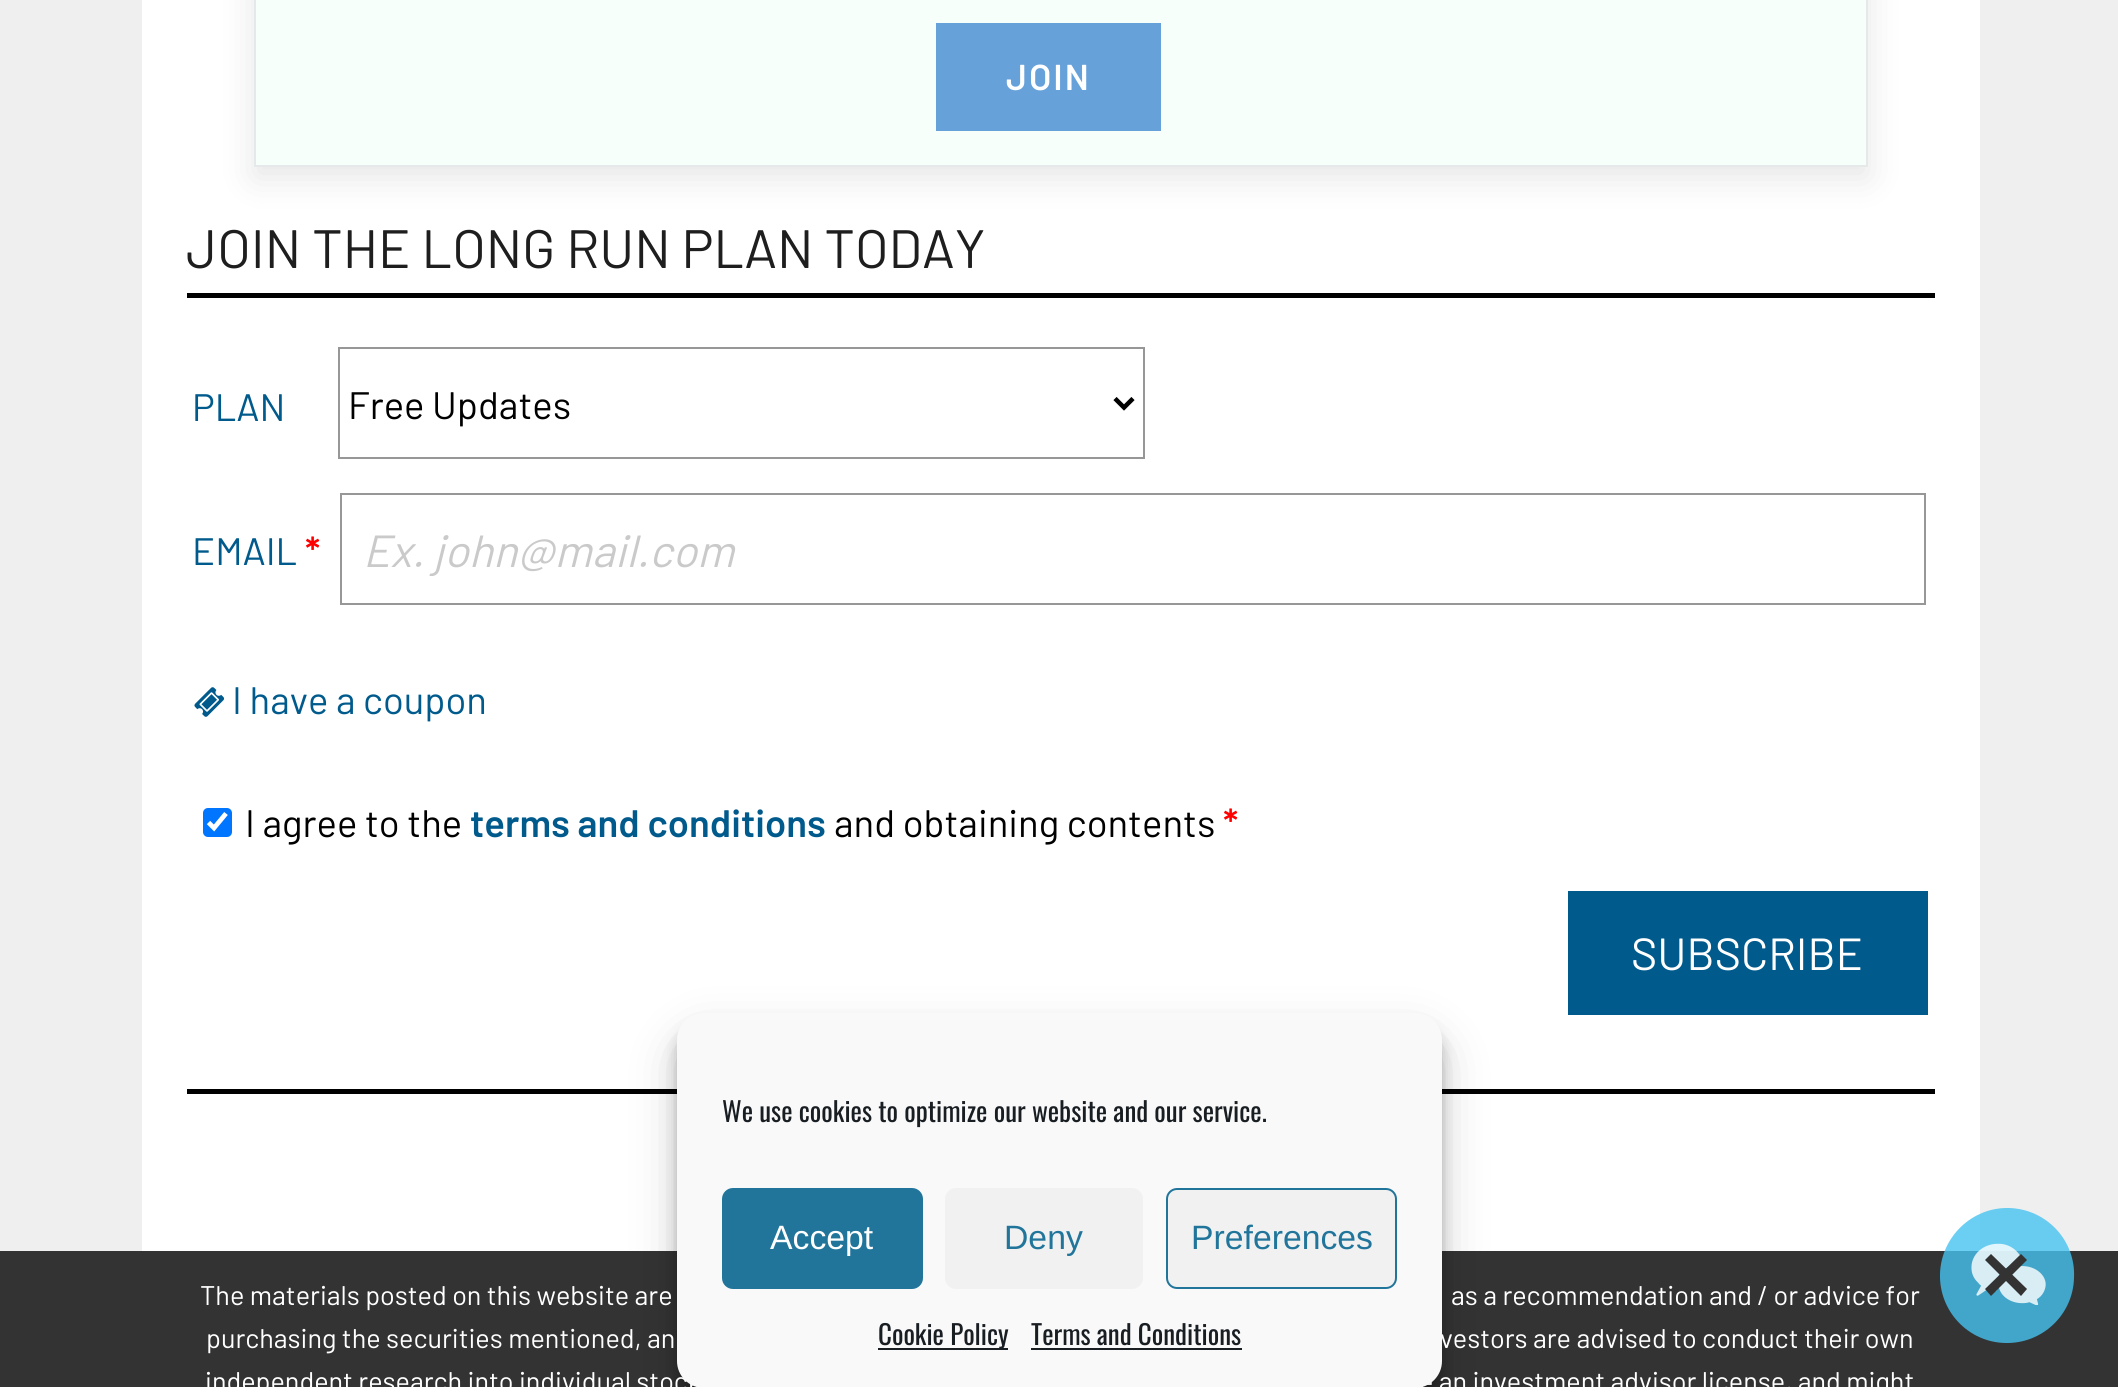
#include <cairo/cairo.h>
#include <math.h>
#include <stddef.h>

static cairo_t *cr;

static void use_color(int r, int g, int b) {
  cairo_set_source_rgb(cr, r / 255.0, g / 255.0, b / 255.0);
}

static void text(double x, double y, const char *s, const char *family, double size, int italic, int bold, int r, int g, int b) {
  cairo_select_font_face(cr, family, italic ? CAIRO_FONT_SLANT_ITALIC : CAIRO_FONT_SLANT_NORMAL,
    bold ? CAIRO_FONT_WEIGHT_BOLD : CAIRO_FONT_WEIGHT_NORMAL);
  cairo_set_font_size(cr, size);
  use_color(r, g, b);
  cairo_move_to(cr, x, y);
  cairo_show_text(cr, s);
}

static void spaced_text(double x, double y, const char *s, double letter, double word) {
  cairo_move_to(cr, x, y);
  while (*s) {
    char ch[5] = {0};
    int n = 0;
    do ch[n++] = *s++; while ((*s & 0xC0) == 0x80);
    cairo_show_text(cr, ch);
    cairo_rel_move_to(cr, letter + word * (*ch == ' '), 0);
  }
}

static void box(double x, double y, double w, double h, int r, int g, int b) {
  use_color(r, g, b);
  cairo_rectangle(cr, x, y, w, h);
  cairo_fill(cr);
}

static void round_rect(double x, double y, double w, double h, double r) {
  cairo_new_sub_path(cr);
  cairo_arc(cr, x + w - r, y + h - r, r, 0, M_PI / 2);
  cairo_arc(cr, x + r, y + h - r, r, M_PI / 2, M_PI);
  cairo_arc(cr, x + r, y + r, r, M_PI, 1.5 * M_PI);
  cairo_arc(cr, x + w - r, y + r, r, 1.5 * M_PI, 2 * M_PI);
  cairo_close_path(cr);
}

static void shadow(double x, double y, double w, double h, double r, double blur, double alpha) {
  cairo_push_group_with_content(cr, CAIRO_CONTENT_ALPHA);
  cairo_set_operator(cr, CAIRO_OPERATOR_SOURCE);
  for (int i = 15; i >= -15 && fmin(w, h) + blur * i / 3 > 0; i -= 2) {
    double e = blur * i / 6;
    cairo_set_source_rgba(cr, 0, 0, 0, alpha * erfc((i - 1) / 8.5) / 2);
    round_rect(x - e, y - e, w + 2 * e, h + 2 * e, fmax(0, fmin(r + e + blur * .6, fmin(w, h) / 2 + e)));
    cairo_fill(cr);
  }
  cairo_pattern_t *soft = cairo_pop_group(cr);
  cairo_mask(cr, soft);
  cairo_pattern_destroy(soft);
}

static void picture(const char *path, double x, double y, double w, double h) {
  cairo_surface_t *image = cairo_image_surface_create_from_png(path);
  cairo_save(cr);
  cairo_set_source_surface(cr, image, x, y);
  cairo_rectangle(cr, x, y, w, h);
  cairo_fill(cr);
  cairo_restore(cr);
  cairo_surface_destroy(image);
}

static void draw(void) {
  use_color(239, 239, 239);
  cairo_paint(cr);
  box(142, 0, 1838, 1251, 255, 255, 255);
  use_color(0, 0, 0);
  shadow(254, -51, 1614, 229, 0, 17, 0.1);
  use_color(246, 255, 250);
  cairo_rectangle(cr, 255, -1, 1612, 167);
  cairo_fill_preserve(cr);
  use_color(229, 233, 234);
  cairo_stroke(cr);
  box(936, 23, 225, 108, 103, 161, 218);
  box(187, 293, 1748, 5, 0, 0, 0);
  box(187, 1089, 1748, 5, 0, 0, 0);
  cairo_new_path(cr);
  cairo_move_to(cr, 1115, 398.5);
  cairo_line_to(cr, 1124, 407.5);
  cairo_line_to(cr, 1133, 398.5);
  cairo_set_line_width(cr, 4.5);
  cairo_stroke(cr);
  cairo_rectangle(cr, 339, 348, 805, 110);
  use_color(151, 151, 151);
  cairo_set_line_width(cr, 2);
  cairo_stroke(cr);
  cairo_rectangle(cr, 341, 494, 1584, 110);
  cairo_stroke(cr);
  picture("img_01.png", 194, 687, 31, 30);
  use_color(0, 117, 255);
  round_rect(203, 808, 29, 29, 5);
  cairo_fill(cr);
  cairo_new_path(cr);
  cairo_move_to(cr, 208.5, 822.5);
  cairo_line_to(cr, 214, 828);
  cairo_line_to(cr, 226, 813.5);
  use_color(255, 255, 255);
  cairo_set_line_width(cr, 4.7);
  cairo_stroke(cr);
  box(1568, 891, 360, 124, 0, 90, 140);
  box(0, 1251, 2118, 136, 51, 51, 51);
  use_color(0, 0, 0);
  shadow(677, 1026, 765, 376, 27, 7, 0.23);
  shadow(677, 1035, 765, 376, 27, 22.5, 0.19);
  cairo_set_source_rgba(cr, 0.275, 0.761, 0.941, 0.8);
  cairo_new_path(cr);
  cairo_move_to(cr, 1940, 1274);
  cairo_curve_to(cr, 1941, 1237, 1972, 1207, 2009, 1208);
  cairo_curve_to(cr, 2046, 1209, 2076, 1240, 2074, 1278);
  cairo_curve_to(cr, 2073, 1315, 2042, 1344, 2005, 1343);
  cairo_curve_to(cr, 1968, 1342, 1939, 1311, 1940, 1274);
  cairo_close_path(cr);
  cairo_fill(cr);
  picture("img_02.png", 1971, 1243, 75, 62);
  use_color(51, 51, 51);
  cairo_new_path(cr);
  cairo_move_to(cr, 1991, 1254);
  cairo_line_to(cr, 2027, 1289);
  cairo_line_to(cr, 2021, 1296);
  cairo_line_to(cr, 1985, 1260);
  cairo_close_path(cr);
  cairo_fill(cr);
  cairo_new_path(cr);
  cairo_move_to(cr, 2027, 1260);
  cairo_line_to(cr, 1991, 1296);
  cairo_line_to(cr, 1985, 1289);
  cairo_line_to(cr, 2021, 1254);
  cairo_close_path(cr);
  cairo_fill(cr);
  cairo_select_font_face(cr, "Barlow SemiBold", CAIRO_FONT_SLANT_NORMAL, CAIRO_FONT_WEIGHT_NORMAL);
  cairo_set_font_size(cr, 36);
  use_color(255, 255, 255);
  spaced_text(1006, 90, "JOIN", 2, 0);
  text(186, 268, "JOIN THE LONG RUN PLAN TODAY", "Barlow", 54, 0, 0, 31, 30, 30);
  text(192, 421, "PLAN", "Barlow", 38.25, 0, 0, 0, 90, 140);
  text(348, 419, "Free Updates", "Barlow", 38.25, 0, 0, 0, 0, 0);
  text(192, 565, "EMAIL", "Barlow", 38.25, 0, 0, 0, 90, 140);
  text(305, 565, "*", "Barlow SemiBold", 38.25, 0, 0, 255, 0, 0);
  cairo_save(cr);
  cairo_rectangle(cr, 365, 522, 1536, 54);
  cairo_clip(cr);
  text(363, 567, "Ex. john@mail.com", "Barlow", 45, 1, 0, 202, 202, 202);
  cairo_restore(cr);
  text(232, 714, "I have a coupon", "Barlow", 38.25, 0, 0, 0, 90, 140);
  text(245, 837, "I agree to the", "Barlow", 38.25, 0, 0, 0, 0, 0);
  text(470, 837, "terms and conditions", "Barlow SemiBold", 38.25, 0, 0, 0, 90, 140);
  text(834, 837, "and obtaining contents", "Barlow", 38.25, 0, 0, 0, 0, 0);
  text(1223, 837, "*", "Barlow SemiBold", 38.25, 0, 0, 255, 0, 0);
  text(1631, 970, "SUBSCRIBE", "Barlow", 45, 0, 0, 255, 255, 255);
  text(200, 1305, "The materials posted on this website are", "Barlow", 27, 0, 0, 255, 255, 255);
  text(1451, 1305, "as a recommendation and / or advice for", "Barlow", 27, 0, 0, 255, 255, 255);
  text(206, 1348, "purchasing the securities mentioned, an", "Barlow", 27, 0, 0, 255, 255, 255);
  text(1440, 1348, "vestors are advised to conduct their own", "Barlow", 27, 0, 0, 255, 255, 255);
  text(205, 1391, "independent research into individual stock", "Barlow", 27, 0, 0, 255, 255, 255);
  text(1419, 1391, "e an investment advisor license, and might", "Barlow", 27, 0, 0, 255, 255, 255);
  use_color(249, 249, 249);
  round_rect(677, 1013, 765, 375, 27);
  cairo_fill(cr);
  text(722, 1122, "We use cookies to optimize our website and our service.", "Oswald", 27, 0, 0, 25, 30, 35);
  text(1031, 1345, "Terms and Conditions", "Oswald", 27, 0, 0, 25, 30, 35);
  box(1031, 1348, 211, 2, 25, 30, 35);
  box(878, 1348, 130, 2, 25, 30, 35);
  text(878, 1345, "Cookie Policy", "Oswald", 27, 0, 0, 25, 30, 35);
  use_color(241, 241, 241);
  round_rect(1167, 1189, 229, 99, 10);
  cairo_fill_preserve(cr);
  use_color(33, 117, 155);
  cairo_set_line_width(cr, 2);
  cairo_stroke(cr);
  text(1191, 1249, "Preferences", "Liberation Sans", 33.75, 0, 0, 33, 117, 155);
  use_color(241, 241, 241);
  round_rect(945, 1188, 198, 101, 11);
  cairo_fill(cr);
  text(1004, 1249, "Deny", "Liberation Sans", 33.75, 0, 0, 33, 117, 155);
  round_rect(723, 1189, 199, 99, 10);
  cairo_fill_preserve(cr);
  cairo_stroke(cr);
  text(770, 1249, "Accept", "Liberation Sans", 33.75, 0, 0, 255, 255, 255);
}

int main(void) {
  cairo_surface_t *surface = cairo_image_surface_create(CAIRO_FORMAT_RGB24, 2118, 1387);
  cr = cairo_create(surface);
  cairo_font_options_t *options = cairo_font_options_create();
  cairo_font_options_set_hint_metrics(options, CAIRO_HINT_METRICS_OFF);
  cairo_font_options_set_hint_style(options, CAIRO_HINT_STYLE_NONE);
  cairo_set_font_options(cr, options);
  cairo_set_miter_limit(cr, 4);
  draw();
  cairo_surface_write_to_png(surface, "out.png");
  cairo_font_options_destroy(options);
  cairo_destroy(cr);
  cairo_surface_destroy(surface);
  return 0;
}
